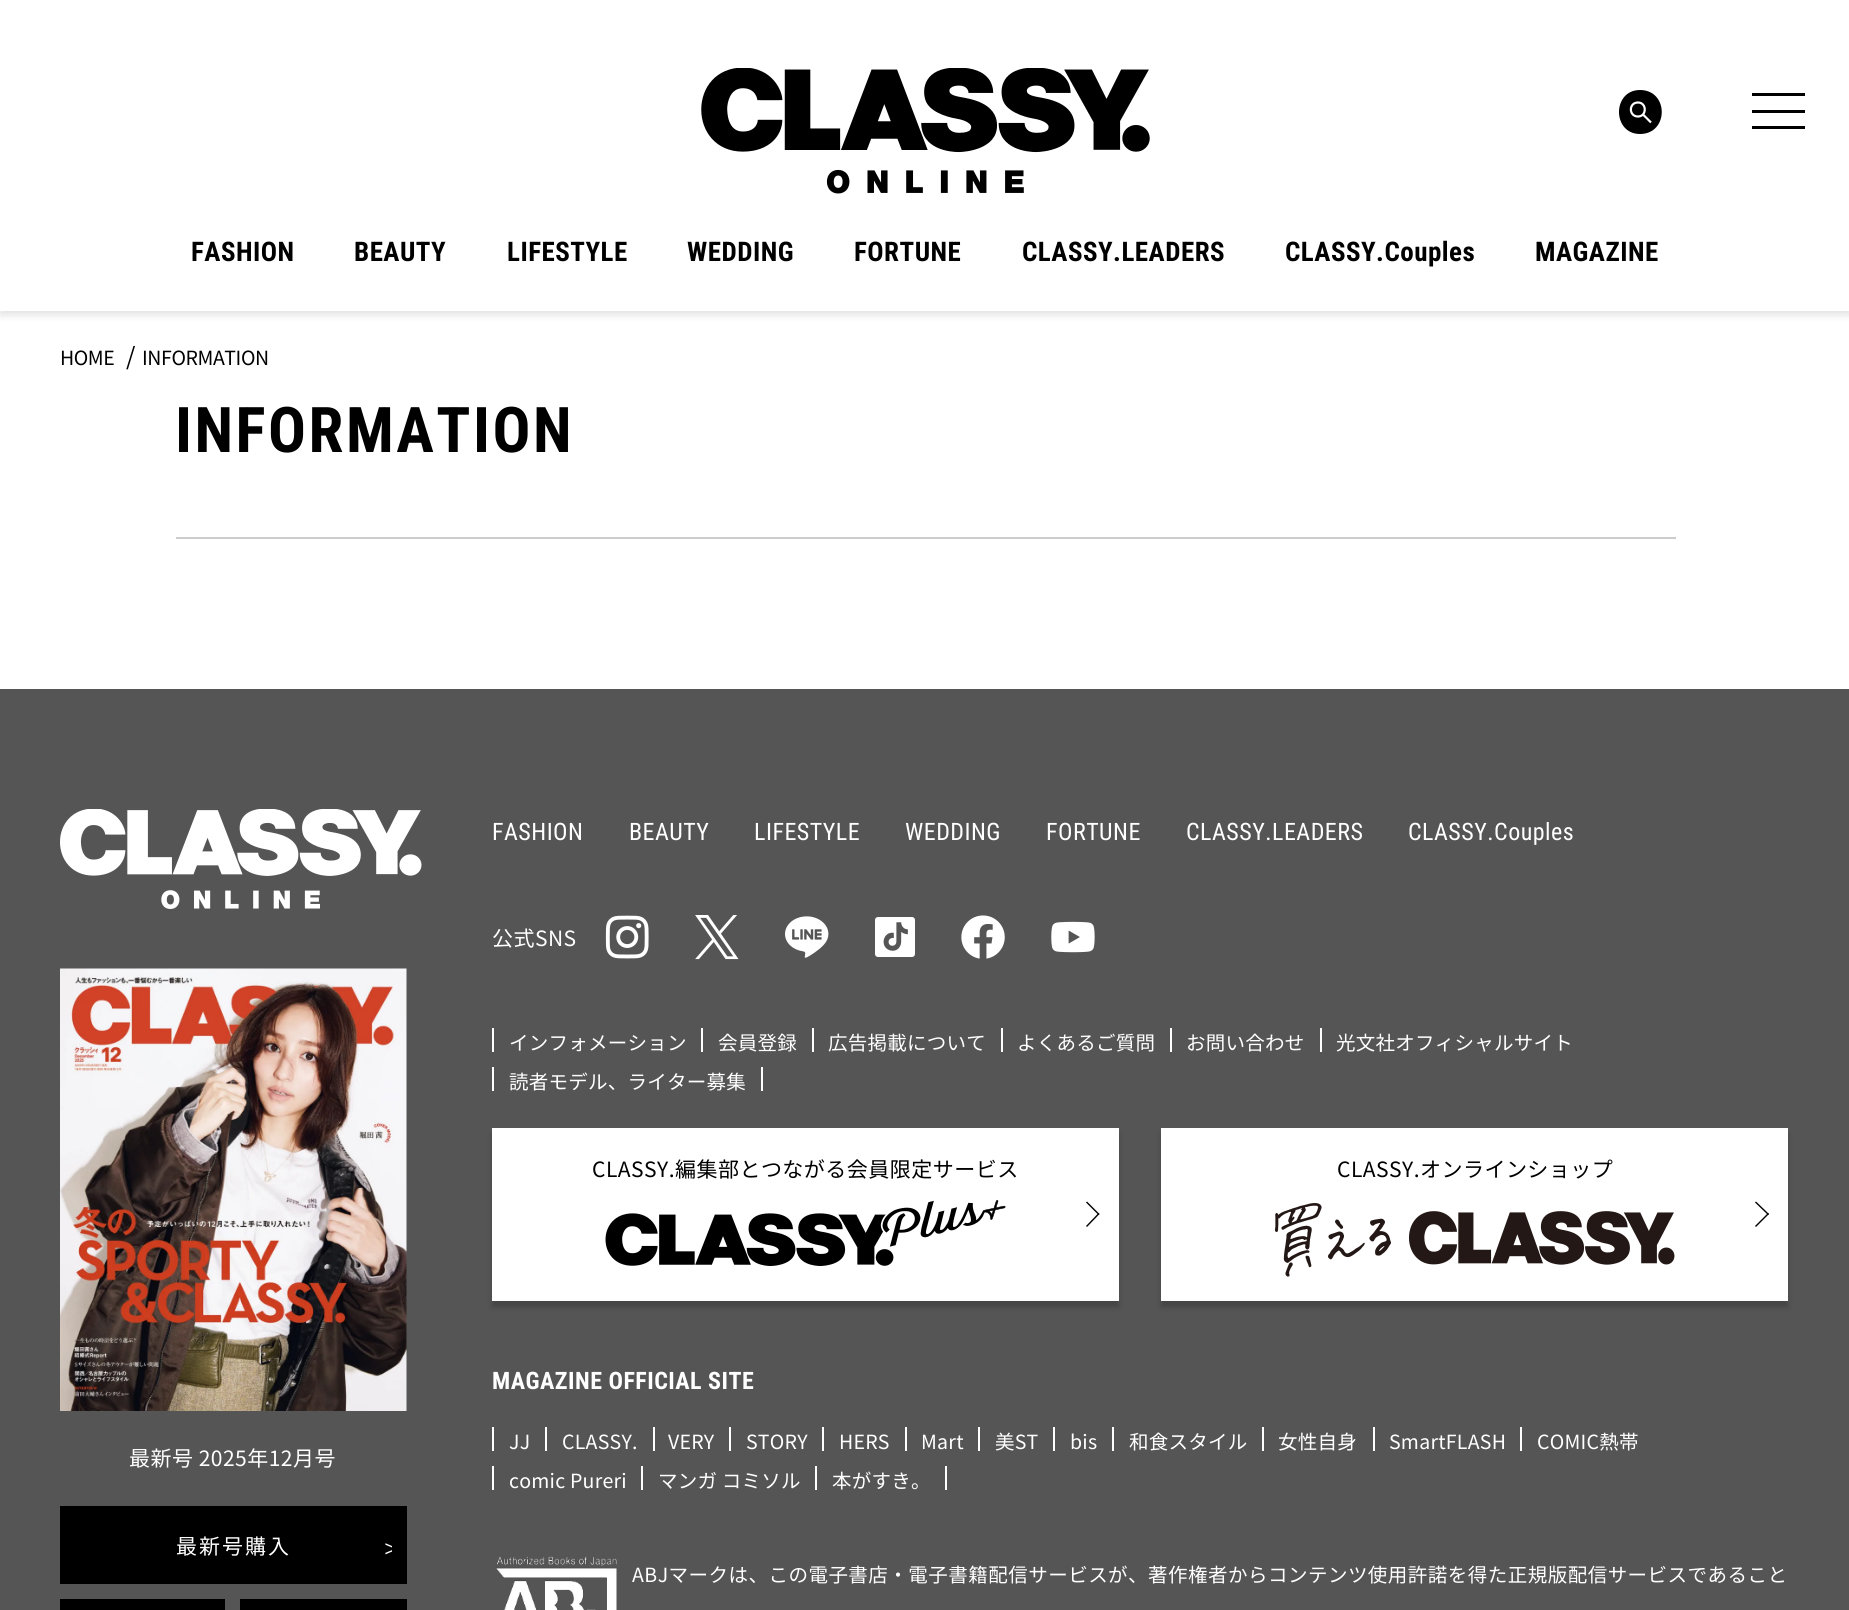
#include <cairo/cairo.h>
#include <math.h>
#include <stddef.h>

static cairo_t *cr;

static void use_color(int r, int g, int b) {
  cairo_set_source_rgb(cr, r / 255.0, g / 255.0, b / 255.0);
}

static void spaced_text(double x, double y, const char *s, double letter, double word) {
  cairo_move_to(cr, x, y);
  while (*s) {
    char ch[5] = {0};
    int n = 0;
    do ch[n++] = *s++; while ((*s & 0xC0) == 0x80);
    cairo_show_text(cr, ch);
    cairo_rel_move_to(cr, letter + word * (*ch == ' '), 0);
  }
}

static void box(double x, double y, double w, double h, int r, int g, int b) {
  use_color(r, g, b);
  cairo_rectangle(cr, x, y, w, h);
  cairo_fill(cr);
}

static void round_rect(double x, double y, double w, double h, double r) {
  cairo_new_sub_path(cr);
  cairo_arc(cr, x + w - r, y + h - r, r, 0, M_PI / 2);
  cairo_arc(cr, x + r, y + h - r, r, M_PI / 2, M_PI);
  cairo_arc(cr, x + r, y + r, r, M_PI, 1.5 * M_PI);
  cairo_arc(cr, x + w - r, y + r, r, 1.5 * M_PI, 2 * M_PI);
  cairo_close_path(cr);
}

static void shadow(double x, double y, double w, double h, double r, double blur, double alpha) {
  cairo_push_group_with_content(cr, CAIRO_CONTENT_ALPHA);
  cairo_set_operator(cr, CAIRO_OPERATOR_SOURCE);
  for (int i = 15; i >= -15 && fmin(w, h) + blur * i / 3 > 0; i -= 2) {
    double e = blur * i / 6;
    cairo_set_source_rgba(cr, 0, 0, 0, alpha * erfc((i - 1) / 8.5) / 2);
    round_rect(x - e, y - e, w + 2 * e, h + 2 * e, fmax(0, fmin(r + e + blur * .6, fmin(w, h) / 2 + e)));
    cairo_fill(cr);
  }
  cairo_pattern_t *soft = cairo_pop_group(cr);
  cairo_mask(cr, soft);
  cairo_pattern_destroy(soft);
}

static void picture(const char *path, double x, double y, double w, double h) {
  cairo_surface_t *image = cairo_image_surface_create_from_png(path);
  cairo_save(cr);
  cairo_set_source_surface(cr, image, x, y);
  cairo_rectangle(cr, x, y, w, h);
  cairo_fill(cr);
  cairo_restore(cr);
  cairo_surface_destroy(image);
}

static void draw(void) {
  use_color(255, 255, 255);
  cairo_paint(cr);
  use_color(0, 0, 0);
  shadow(0, -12, 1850, 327, 0, 4, 0.12);
  box(0, 0, 1849, 311, 255, 255, 255);
  picture("img_01.png", 701, 68, 449, 126);
  use_color(0, 0, 0);
  cairo_new_path(cr);
  cairo_move_to(cr, 1640, 134);
  cairo_curve_to(cr, 1669, 134, 1669, 90, 1640, 90);
  cairo_curve_to(cr, 1612, 90, 1612, 134, 1640, 134);
  cairo_close_path(cr);
  cairo_fill(cr);
  cairo_new_path(cr);
  cairo_move_to(cr, 1638, 116.5);
  cairo_curve_to(cr, 1647, 116.5, 1647, 102.5, 1638, 102.5);
  cairo_curve_to(cr, 1628.5, 102.5, 1628.5, 116.5, 1638, 116.5);
  cairo_close_path(cr);
  cairo_move_to(cr, 1643, 114.5);
  cairo_line_to(cr, 1651, 122.5);
  use_color(255, 255, 255);
  cairo_set_line_width(cr, 2.2);
  cairo_stroke(cr);
  box(1752, 93, 53, 3, 0, 0, 0);
  box(1752, 110, 53, 3, 0, 0, 0);
  box(1752, 126, 53, 3, 0, 0, 0);
  box(176, 537, 1500, 2, 204, 204, 204);
  box(0, 689, 1849, 921, 85, 85, 85);
  picture("img_02.png", 60, 809, 362, 100);
  picture("img_03.png", 60, 968, 347, 443);
  box(60, 1506, 347, 78, 0, 0, 0);
  box(60, 1599, 165, 11, 0, 0, 0);
  box(240, 1599, 167, 11, 0, 0, 0);
  picture("img_04.png", 605, 915, 44, 44);
  picture("img_05.png", 695, 915, 44, 45);
  picture("img_06.png", 785, 916, 44, 42);
  picture("img_07.png", 875, 917, 40, 40);
  picture("img_08.png", 961, 915, 44, 44);
  picture("img_09.png", 1051, 921, 44, 32);
  box(492, 1028, 2, 24, 255, 255, 255);
  box(701, 1028, 2, 24, 255, 255, 255);
  box(812, 1028, 2, 24, 255, 255, 255);
  box(1001, 1028, 2, 24, 255, 255, 255);
  box(1170, 1028, 2, 24, 255, 255, 255);
  box(1320, 1028, 2, 24, 255, 255, 255);
  box(761, 1067, 2, 24, 255, 255, 255);
  box(492, 1067, 2, 24, 255, 255, 255);
  use_color(0, 0, 0);
  shadow(492, 1134, 627, 173, 0, 3, 0.2);
  box(492, 1128, 627, 173, 255, 255, 255);
  picture("img_10.png", 605, 1200, 401, 66);
  use_color(0, 0, 0);
  cairo_new_path(cr);
  cairo_move_to(cr, 1087, 1201.5);
  cairo_line_to(cr, 1099.5, 1214);
  cairo_line_to(cr, 1098.5, 1215);
  cairo_line_to(cr, 1086, 1202.5);
  cairo_close_path(cr);
  cairo_fill(cr);
  cairo_new_path(cr);
  cairo_move_to(cr, 1098.5, 1213);
  cairo_line_to(cr, 1099.5, 1214);
  cairo_line_to(cr, 1087, 1227);
  cairo_line_to(cr, 1086, 1226);
  cairo_close_path(cr);
  cairo_fill(cr);
  use_color(0, 0, 0);
  shadow(1161, 1134, 627, 173, 0, 3, 0.2);
  box(1161, 1128, 627, 173, 255, 255, 255);
  picture("img_11.png", 1274, 1203, 401, 74);
  use_color(0, 0, 0);
  cairo_new_path(cr);
  cairo_move_to(cr, 1756, 1201.5);
  cairo_line_to(cr, 1769, 1214);
  cairo_line_to(cr, 1768, 1215);
  cairo_line_to(cr, 1755, 1202.5);
  cairo_close_path(cr);
  cairo_fill(cr);
  cairo_new_path(cr);
  cairo_move_to(cr, 1768, 1213);
  cairo_line_to(cr, 1769, 1214);
  cairo_line_to(cr, 1756, 1227);
  cairo_line_to(cr, 1755, 1226);
  cairo_close_path(cr);
  cairo_fill(cr);
  box(492, 1427, 2, 24, 255, 255, 255);
  box(545, 1427, 2, 24, 255, 255, 255);
  box(653, 1427, 2, 24, 255, 255, 255);
  box(729, 1427, 2, 24, 255, 255, 255);
  box(822, 1427, 2, 24, 255, 255, 255);
  box(905, 1427, 2, 24, 255, 255, 255);
  box(978, 1427, 2, 24, 255, 255, 255);
  box(1053, 1427, 2, 24, 255, 255, 255);
  box(1112, 1427, 2, 24, 255, 255, 255);
  box(1262, 1427, 2, 24, 255, 255, 255);
  box(1373, 1427, 2, 24, 255, 255, 255);
  box(1520, 1427, 2, 24, 255, 255, 255);
  box(492, 1466, 2, 24, 255, 255, 255);
  box(641, 1466, 2, 24, 255, 255, 255);
  box(945, 1466, 2, 24, 255, 255, 255);
  box(815, 1466, 2, 24, 255, 255, 255);
  picture("img_12.png", 496, 1556, 121, 54);
  cairo_select_font_face(cr, "Roboto Condensed", CAIRO_FONT_SLANT_NORMAL, CAIRO_FONT_WEIGHT_BOLD);
  cairo_set_font_size(cr, 27);
  use_color(0, 0, 0);
  spaced_text(191, 261, "FASHION", 0.48, 0);
  spaced_text(354, 261, "BEAUTY", 0.48, 0);
  spaced_text(507, 261, "LIFESTYLE", 0.48, 0);
  spaced_text(687, 261, "WEDDING", 0.48, 0);
  spaced_text(854, 261, "FORTUNE", 0.48, 0);
  spaced_text(1022, 261, "CLASSY.LEADERS", 0.48, 0);
  spaced_text(1285, 261, "CLASSY.Couples", 0.48, 0);
  spaced_text(1535, 261, "MAGAZINE", 0.48, 0);
  cairo_select_font_face(cr, "Noto Sans JP", CAIRO_FONT_SLANT_NORMAL, CAIRO_FONT_WEIGHT_NORMAL);
  cairo_set_font_size(cr, 19.5);
  spaced_text(60, 365, "HOME", -0.4, 0);
  cairo_set_font_size(cr, 24);
  spaced_text(126, 365, "/", 0.48, 0);
  cairo_set_font_size(cr, 19.5);
  spaced_text(142, 365, "INFORMATION", -0.4, 0);
  cairo_select_font_face(cr, "Roboto Condensed", CAIRO_FONT_SLANT_NORMAL, CAIRO_FONT_WEIGHT_BOLD);
  cairo_set_font_size(cr, 63);
  spaced_text(175, 452, "INFORMATION", 2.5, 0);
  cairo_select_font_face(cr, "Noto Sans JP", CAIRO_FONT_SLANT_NORMAL, CAIRO_FONT_WEIGHT_NORMAL);
  cairo_set_font_size(cr, 21);
  use_color(255, 255, 255);
  spaced_text(129, 1466, "最新号 2025年12月号", 0.48, 0);
  spaced_text(176, 1554, "最新号購入", 2, 0);
  cairo_save(cr);
  cairo_rectangle(cr, 380, 1535, 12, 25);
  cairo_clip(cr);
  cairo_select_font_face(cr, "WenQuanYi Zen Hei Medium", CAIRO_FONT_SLANT_NORMAL, CAIRO_FONT_WEIGHT_NORMAL);
  cairo_set_font_size(cr, 25);
  spaced_text(379, 1556, "＞", -9, 0);
  cairo_restore(cr);
  cairo_select_font_face(cr, "Roboto Condensed", CAIRO_FONT_SLANT_NORMAL, CAIRO_FONT_WEIGHT_NORMAL);
  cairo_set_font_size(cr, 24);
  spaced_text(492, 840, "FASHION", 0.48, 0);
  spaced_text(629, 840, "BEAUTY", 0.48, 0);
  spaced_text(754, 840, "LIFESTYLE", 0.48, 0);
  spaced_text(905, 840, "WEDDING", 0.48, 0);
  spaced_text(1046, 840, "FORTUNE", 0.48, 0);
  spaced_text(1186, 840, "CLASSY.LEADERS", 0.48, 0);
  spaced_text(1408, 840, "CLASSY.Couples", 0.48, 0);
  cairo_select_font_face(cr, "Noto Sans JP", CAIRO_FONT_SLANT_NORMAL, CAIRO_FONT_WEIGHT_NORMAL);
  cairo_set_font_size(cr, 21);
  spaced_text(492, 946, "公式SNS", 0.48, 0);
  cairo_set_font_size(cr, 19.5);
  spaced_text(509, 1050, "インフォメーション", 0.25, 0);
  spaced_text(718, 1050, "会員登録", 0.25, 0);
  spaced_text(828, 1050, "広告掲載について", 0.25, 0);
  spaced_text(1017, 1050, "よくあるご質問", 0.25, 0);
  spaced_text(1186, 1050, "お問い合わせ", 0.25, 0);
  spaced_text(1336, 1050, "光文社オフィシャルサイト", 0.25, 0);
  spaced_text(509, 1089, "読者モデル、ライター募集", 0.25, 0);
  cairo_set_font_size(cr, 21);
  use_color(0, 0, 0);
  spaced_text(592, 1177, "CLASSY.編集部とつながる会員限定サービス", 0.48, 0);
  spaced_text(1337, 1177, "CLASSY.オンラインショップ", 0.48, 0);
  cairo_select_font_face(cr, "Roboto Condensed", CAIRO_FONT_SLANT_NORMAL, CAIRO_FONT_WEIGHT_BOLD);
  cairo_set_font_size(cr, 24);
  use_color(255, 255, 255);
  spaced_text(492, 1389, "MAGAZINE OFFICIAL SITE", 0.48, 0);
  cairo_select_font_face(cr, "Noto Sans JP", CAIRO_FONT_SLANT_NORMAL, CAIRO_FONT_WEIGHT_NORMAL);
  cairo_set_font_size(cr, 19.5);
  spaced_text(509, 1449, "JJ", 0.25, 0);
  spaced_text(562, 1449, "CLASSY.", 0.25, 0);
  spaced_text(668, 1449, "VERY", 0.25, 0);
  spaced_text(746, 1449, "STORY", 0.25, 0);
  spaced_text(839, 1449, "HERS", 0.25, 0);
  spaced_text(921, 1449, "Mart", 0.25, 0);
  spaced_text(995, 1449, "美ST", 0.25, 0);
  spaced_text(1070, 1449, "bis", 0.25, 0);
  spaced_text(1129, 1449, "和食スタイル", 0.25, 0);
  spaced_text(1278, 1449, "女性自身", 0.25, 0);
  spaced_text(1389, 1449, "SmartFLASH", 0.25, 0);
  spaced_text(1537, 1449, "COMIC熱帯", 0.25, 0);
  spaced_text(509, 1488, "comic Pureri", 0.25, 0);
  spaced_text(658, 1488, "マンガ コミソル", 0.25, 0);
  spaced_text(832, 1488, "本がすき。", 0.25, 0);
  spaced_text(632, 1582, "ABJマークは、この電子書店・電子書籍配信サービスが、著作権者からコンテンツ使用許諾を得た正規版配信サービスであること", 0.48, 0);
}

int main(void) {
  cairo_surface_t *surface = cairo_image_surface_create(CAIRO_FORMAT_RGB24, 1849, 1610);
  cr = cairo_create(surface);
  cairo_font_options_t *options = cairo_font_options_create();
  cairo_font_options_set_hint_metrics(options, CAIRO_HINT_METRICS_OFF);
  cairo_font_options_set_hint_style(options, CAIRO_HINT_STYLE_NONE);
  cairo_set_font_options(cr, options);
  cairo_set_miter_limit(cr, 4);
  draw();
  cairo_surface_write_to_png(surface, "out.png");
  cairo_font_options_destroy(options);
  cairo_destroy(cr);
  cairo_surface_destroy(surface);
  return 0;
}
